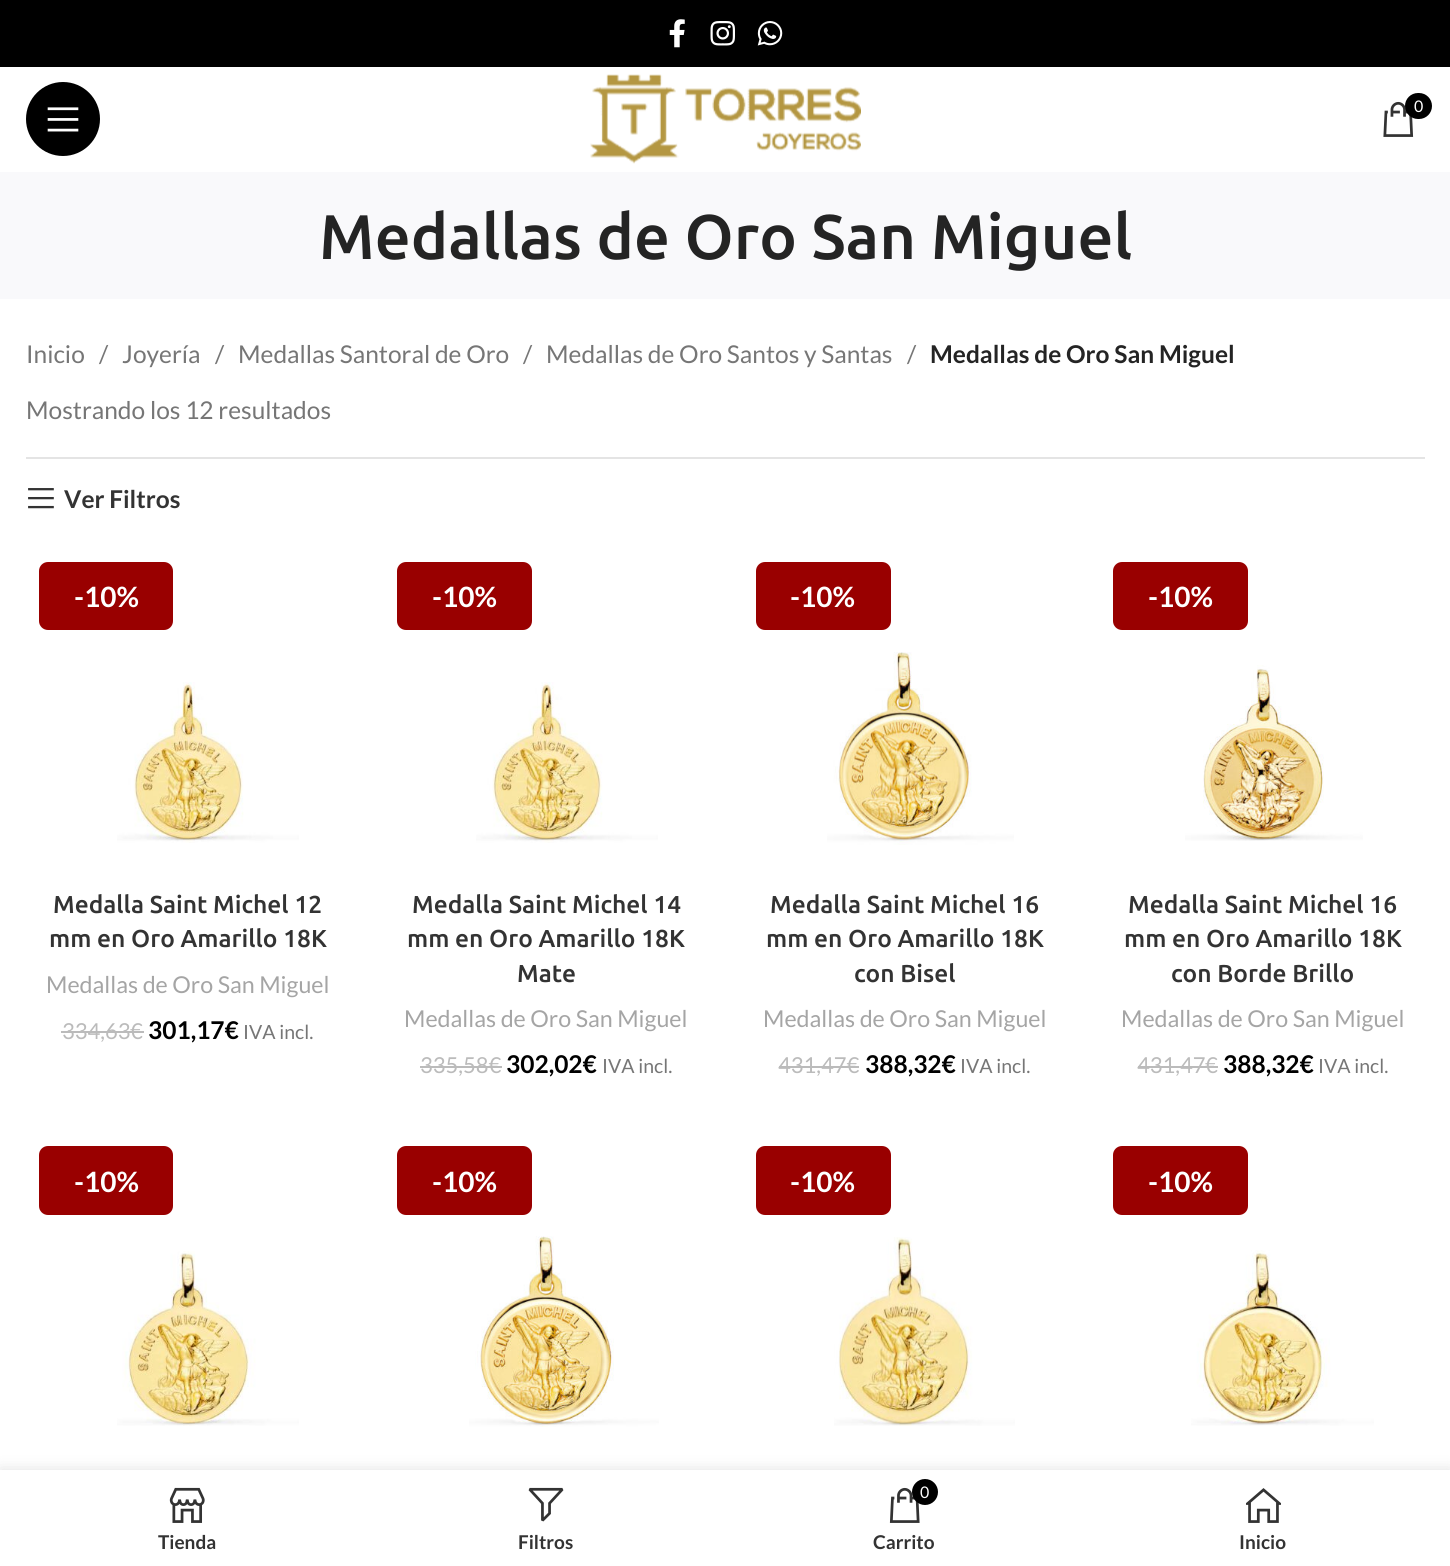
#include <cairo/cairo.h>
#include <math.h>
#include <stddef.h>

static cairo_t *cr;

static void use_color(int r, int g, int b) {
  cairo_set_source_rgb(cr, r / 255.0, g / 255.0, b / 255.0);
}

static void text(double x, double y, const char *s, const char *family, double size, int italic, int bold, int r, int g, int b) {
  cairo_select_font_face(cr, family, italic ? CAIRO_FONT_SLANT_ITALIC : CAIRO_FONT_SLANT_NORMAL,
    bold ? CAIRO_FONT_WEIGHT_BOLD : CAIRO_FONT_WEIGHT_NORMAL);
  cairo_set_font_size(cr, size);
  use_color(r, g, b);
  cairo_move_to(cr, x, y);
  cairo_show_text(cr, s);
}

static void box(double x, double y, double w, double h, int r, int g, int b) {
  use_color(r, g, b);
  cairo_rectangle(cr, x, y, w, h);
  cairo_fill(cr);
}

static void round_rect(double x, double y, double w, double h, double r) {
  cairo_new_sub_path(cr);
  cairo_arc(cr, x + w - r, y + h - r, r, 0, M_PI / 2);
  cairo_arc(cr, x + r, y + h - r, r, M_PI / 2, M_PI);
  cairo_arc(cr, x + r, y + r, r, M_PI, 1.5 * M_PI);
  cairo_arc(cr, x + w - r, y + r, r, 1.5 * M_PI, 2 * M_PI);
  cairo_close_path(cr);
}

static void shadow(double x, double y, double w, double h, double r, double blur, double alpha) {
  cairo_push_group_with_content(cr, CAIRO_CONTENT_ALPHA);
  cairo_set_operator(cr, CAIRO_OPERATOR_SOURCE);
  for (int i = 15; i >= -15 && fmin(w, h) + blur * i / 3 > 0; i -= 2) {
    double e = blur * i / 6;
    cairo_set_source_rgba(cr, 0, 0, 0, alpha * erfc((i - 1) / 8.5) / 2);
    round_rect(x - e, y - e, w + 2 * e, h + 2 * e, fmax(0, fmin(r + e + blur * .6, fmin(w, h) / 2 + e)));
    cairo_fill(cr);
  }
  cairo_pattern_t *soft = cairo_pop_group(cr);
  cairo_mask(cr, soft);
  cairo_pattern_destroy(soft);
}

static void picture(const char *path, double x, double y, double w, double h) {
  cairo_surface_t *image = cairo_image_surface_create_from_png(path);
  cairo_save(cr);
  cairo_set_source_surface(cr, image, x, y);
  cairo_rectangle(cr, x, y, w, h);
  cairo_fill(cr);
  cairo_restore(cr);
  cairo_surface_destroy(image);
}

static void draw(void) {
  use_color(255, 255, 255);
  cairo_paint(cr);
  box(0, 0, 1450, 67, 0, 0, 0);
  picture("img_01.png", 669, 19, 16, 29);
  picture("img_02.png", 710, 21, 25, 25);
  picture("img_03.png", 757, 21, 26, 25);
  cairo_arc(cr, 63, 119, 37, 0, 2 * M_PI);
  cairo_fill(cr);
  picture("img_04.png", 47, 107, 32, 25);
  picture("img_05.png", 590, 74, 271, 90);
  picture("img_06.png", 1383, 101, 31, 36);
  round_rect(1405, 93, 27, 26, 13);
  cairo_fill(cr);
  box(0, 172, 1450, 127, 249, 249, 251);
  box(26, 457, 1399, 2, 228, 228, 228);
  picture("img_07.png", 28, 488, 26, 21);
  use_color(153, 0, 0);
  round_rect(39, 562, 134, 68, 9);
  cairo_fill(cr);
  picture("img_08.png", 117, 682, 182, 161);
  box(61, 1031, 70, 2, 187, 187, 187);
  box(131, 1031, 13, 2, 187, 187, 187);
  use_color(153, 0, 0);
  round_rect(397, 562, 135, 68, 9);
  cairo_fill(cr);
  picture("img_09.png", 476, 682, 182, 161);
  box(420, 1066, 82, 2, 187, 187, 187);
  use_color(153, 0, 0);
  round_rect(756, 562, 135, 68, 9);
  cairo_fill(cr);
  picture("img_10.png", 827, 652, 187, 193);
  box(779, 1066, 80, 2, 187, 187, 187);
  use_color(153, 0, 0);
  round_rect(1113, 562, 135, 68, 9);
  cairo_fill(cr);
  picture("img_11.png", 1185, 665, 178, 176);
  box(1138, 1066, 68, 2, 187, 187, 187);
  box(1206, 1066, 12, 2, 187, 187, 187);
  use_color(153, 0, 0);
  round_rect(39, 1146, 134, 69, 9);
  cairo_fill(cr);
  picture("img_12.png", 117, 1251, 182, 175);
  round_rect(397, 1146, 135, 69, 9);
  cairo_fill(cr);
  picture("img_13.png", 469, 1236, 190, 191);
  round_rect(756, 1146, 135, 69, 9);
  cairo_fill(cr);
  picture("img_14.png", 834, 1237, 181, 189);
  round_rect(1113, 1146, 135, 69, 9);
  cairo_fill(cr);
  picture("img_15.png", 1191, 1250, 183, 176);
  use_color(0, 0, 0);
  shadow(0, 1470, 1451, 96, 0, 8, 0.12);
  box(0, 1470, 1450, 96, 255, 255, 255);
  picture("img_16.png", 169, 1487, 36, 36);
  picture("img_17.png", 528, 1487, 36, 35);
  picture("img_18.png", 889, 1487, 31, 36);
  use_color(0, 0, 0);
  cairo_arc(cr, 925, 1492, 13, 0, 2 * M_PI);
  cairo_fill(cr);
  picture("img_19.png", 1246, 1488, 35, 35);
  text(1414, 112, "0", "Lato", 16, 0, 0, 255, 255, 255);
  text(319, 259, "Medallas de Oro San Miguel", "Ubuntu Medium", 63, 0, 0, 36, 36, 36);
  text(26, 363, "Inicio", "Lato", 24.5, 0, 0, 118, 118, 118);
  text(99, 363, "/", "Lato", 24.5, 0, 0, 118, 118, 118);
  text(122, 363, "Joyería", "Lato", 24.5, 0, 0, 118, 118, 118);
  text(215, 363, "/", "Lato", 24.5, 0, 0, 118, 118, 118);
  text(238, 363, "Medallas Santoral de Oro", "Lato", 24.5, 0, 0, 118, 118, 118);
  text(523, 363, "/", "Lato", 24.5, 0, 0, 118, 118, 118);
  text(546, 363, "Medallas de Oro Santos y Santas", "Lato", 24.5, 0, 0, 118, 118, 118);
  text(907, 363, "/", "Lato", 24.5, 0, 0, 118, 118, 118);
  text(930, 363, "Medallas de Oro San Miguel", "Lato", 24.5, 0, 1, 36, 36, 36);
  text(26, 419, "Mostrando los 12 resultados", "Lato", 24.5, 0, 0, 118, 118, 118);
  text(64, 508, "Ver Filtros", "Lato", 24.5, 0, 1, 51, 51, 51);
  text(74, 607, "-10%", "Lato", 28, 0, 1, 255, 255, 255);
  text(53, 913, "Medalla Saint Michel 12", "Ubuntu Medium", 24.5, 0, 0, 51, 51, 51);
  text(49, 947, "mm en Oro Amarillo 18K", "Ubuntu Medium", 24.5, 0, 0, 51, 51, 51);
  text(46, 993, "Medallas de Oro San Miguel", "Lato", 23.25, 0, 0, 165, 165, 165);
  text(62, 1039, "334,63", "Lato", 22, 0, 0, 187, 187, 187);
  text(130, 1039, "€", "Lato", 22, 0, 0, 187, 187, 187);
  text(148, 1039, "301,17€", "Lato", 24.5, 0, 1, 0, 0, 0);
  text(243, 1039, "IVA incl.", "Lato", 19.5, 0, 0, 118, 118, 118);
  text(432, 607, "-10%", "Lato", 28, 0, 1, 255, 255, 255);
  text(412, 913, "Medalla Saint Michel 14", "Ubuntu Medium", 24.5, 0, 0, 51, 51, 51);
  text(407, 947, "mm en Oro Amarillo 18K", "Ubuntu Medium", 24.5, 0, 0, 51, 51, 51);
  text(517, 982, "Mate", "Ubuntu Medium", 24.5, 0, 0, 51, 51, 51);
  text(404, 1027, "Medallas de Oro San Miguel", "Lato", 23.25, 0, 0, 165, 165, 165);
  text(420, 1073, "335,58€", "Lato", 22, 0, 0, 187, 187, 187);
  text(506, 1073, "302,02€", "Lato", 24.5, 0, 1, 0, 0, 0);
  text(602, 1073, "IVA incl.", "Lato", 19.5, 0, 0, 118, 118, 118);
  text(790, 607, "-10%", "Lato", 28, 0, 1, 255, 255, 255);
  text(770, 913, "Medalla Saint Michel 16", "Ubuntu Medium", 24.5, 0, 0, 51, 51, 51);
  text(766, 947, "mm en Oro Amarillo 18K", "Ubuntu Medium", 24.5, 0, 0, 51, 51, 51);
  text(854, 982, "con Bisel", "Ubuntu Medium", 24.5, 0, 0, 51, 51, 51);
  text(763, 1027, "Medallas de Oro San Miguel", "Lato", 23.25, 0, 0, 165, 165, 165);
  text(778, 1073, "431,47€", "Lato", 22, 0, 0, 187, 187, 187);
  text(865, 1073, "388,32€", "Lato", 24.5, 0, 1, 0, 0, 0);
  text(960, 1073, "IVA incl.", "Lato", 19.5, 0, 0, 118, 118, 118);
  text(1148, 607, "-10%", "Lato", 28, 0, 1, 255, 255, 255);
  text(1128, 913, "Medalla Saint Michel 16", "Ubuntu Medium", 24.5, 0, 0, 51, 51, 51);
  text(1124, 947, "mm en Oro Amarillo 18K", "Ubuntu Medium", 24.5, 0, 0, 51, 51, 51);
  text(1171, 982, "con Borde Brillo", "Ubuntu Medium", 24.5, 0, 0, 51, 51, 51);
  text(1121, 1027, "Medallas de Oro San Miguel", "Lato", 23.25, 0, 0, 165, 165, 165);
  text(1137, 1073, "431,47", "Lato", 22, 0, 0, 187, 187, 187);
  text(1205, 1073, "€", "Lato", 22, 0, 0, 187, 187, 187);
  text(1223, 1073, "388,32€", "Lato", 24.5, 0, 1, 0, 0, 0);
  text(1318, 1073, "IVA incl.", "Lato", 19.5, 0, 0, 118, 118, 118);
  text(74, 1192, "-10%", "Lato", 28, 0, 1, 255, 255, 255);
  text(432, 1192, "-10%", "Lato", 28, 0, 1, 255, 255, 255);
  text(790, 1192, "-10%", "Lato", 28, 0, 1, 255, 255, 255);
  text(1148, 1192, "-10%", "Lato", 28, 0, 1, 255, 255, 255);
  text(158, 1549, "Tienda", "Lato", 19, 0, 1, 51, 51, 51);
  text(518, 1549, "Filtros", "Lato", 19, 0, 1, 51, 51, 51);
  text(920, 1498, "0", "Lato", 16, 0, 0, 255, 255, 255);
  text(873, 1549, "Carrito", "Lato", 19, 0, 1, 51, 51, 51);
  text(1239, 1549, "Inicio", "Lato", 19, 0, 1, 51, 51, 51);
}

int main(void) {
  cairo_surface_t *surface = cairo_image_surface_create(CAIRO_FORMAT_RGB24, 1450, 1566);
  cr = cairo_create(surface);
  cairo_font_options_t *options = cairo_font_options_create();
  cairo_font_options_set_hint_metrics(options, CAIRO_HINT_METRICS_OFF);
  cairo_font_options_set_hint_style(options, CAIRO_HINT_STYLE_NONE);
  cairo_set_font_options(cr, options);
  cairo_set_miter_limit(cr, 4);
  draw();
  cairo_surface_write_to_png(surface, "out.png");
  cairo_font_options_destroy(options);
  cairo_destroy(cr);
  cairo_surface_destroy(surface);
  return 0;
}
